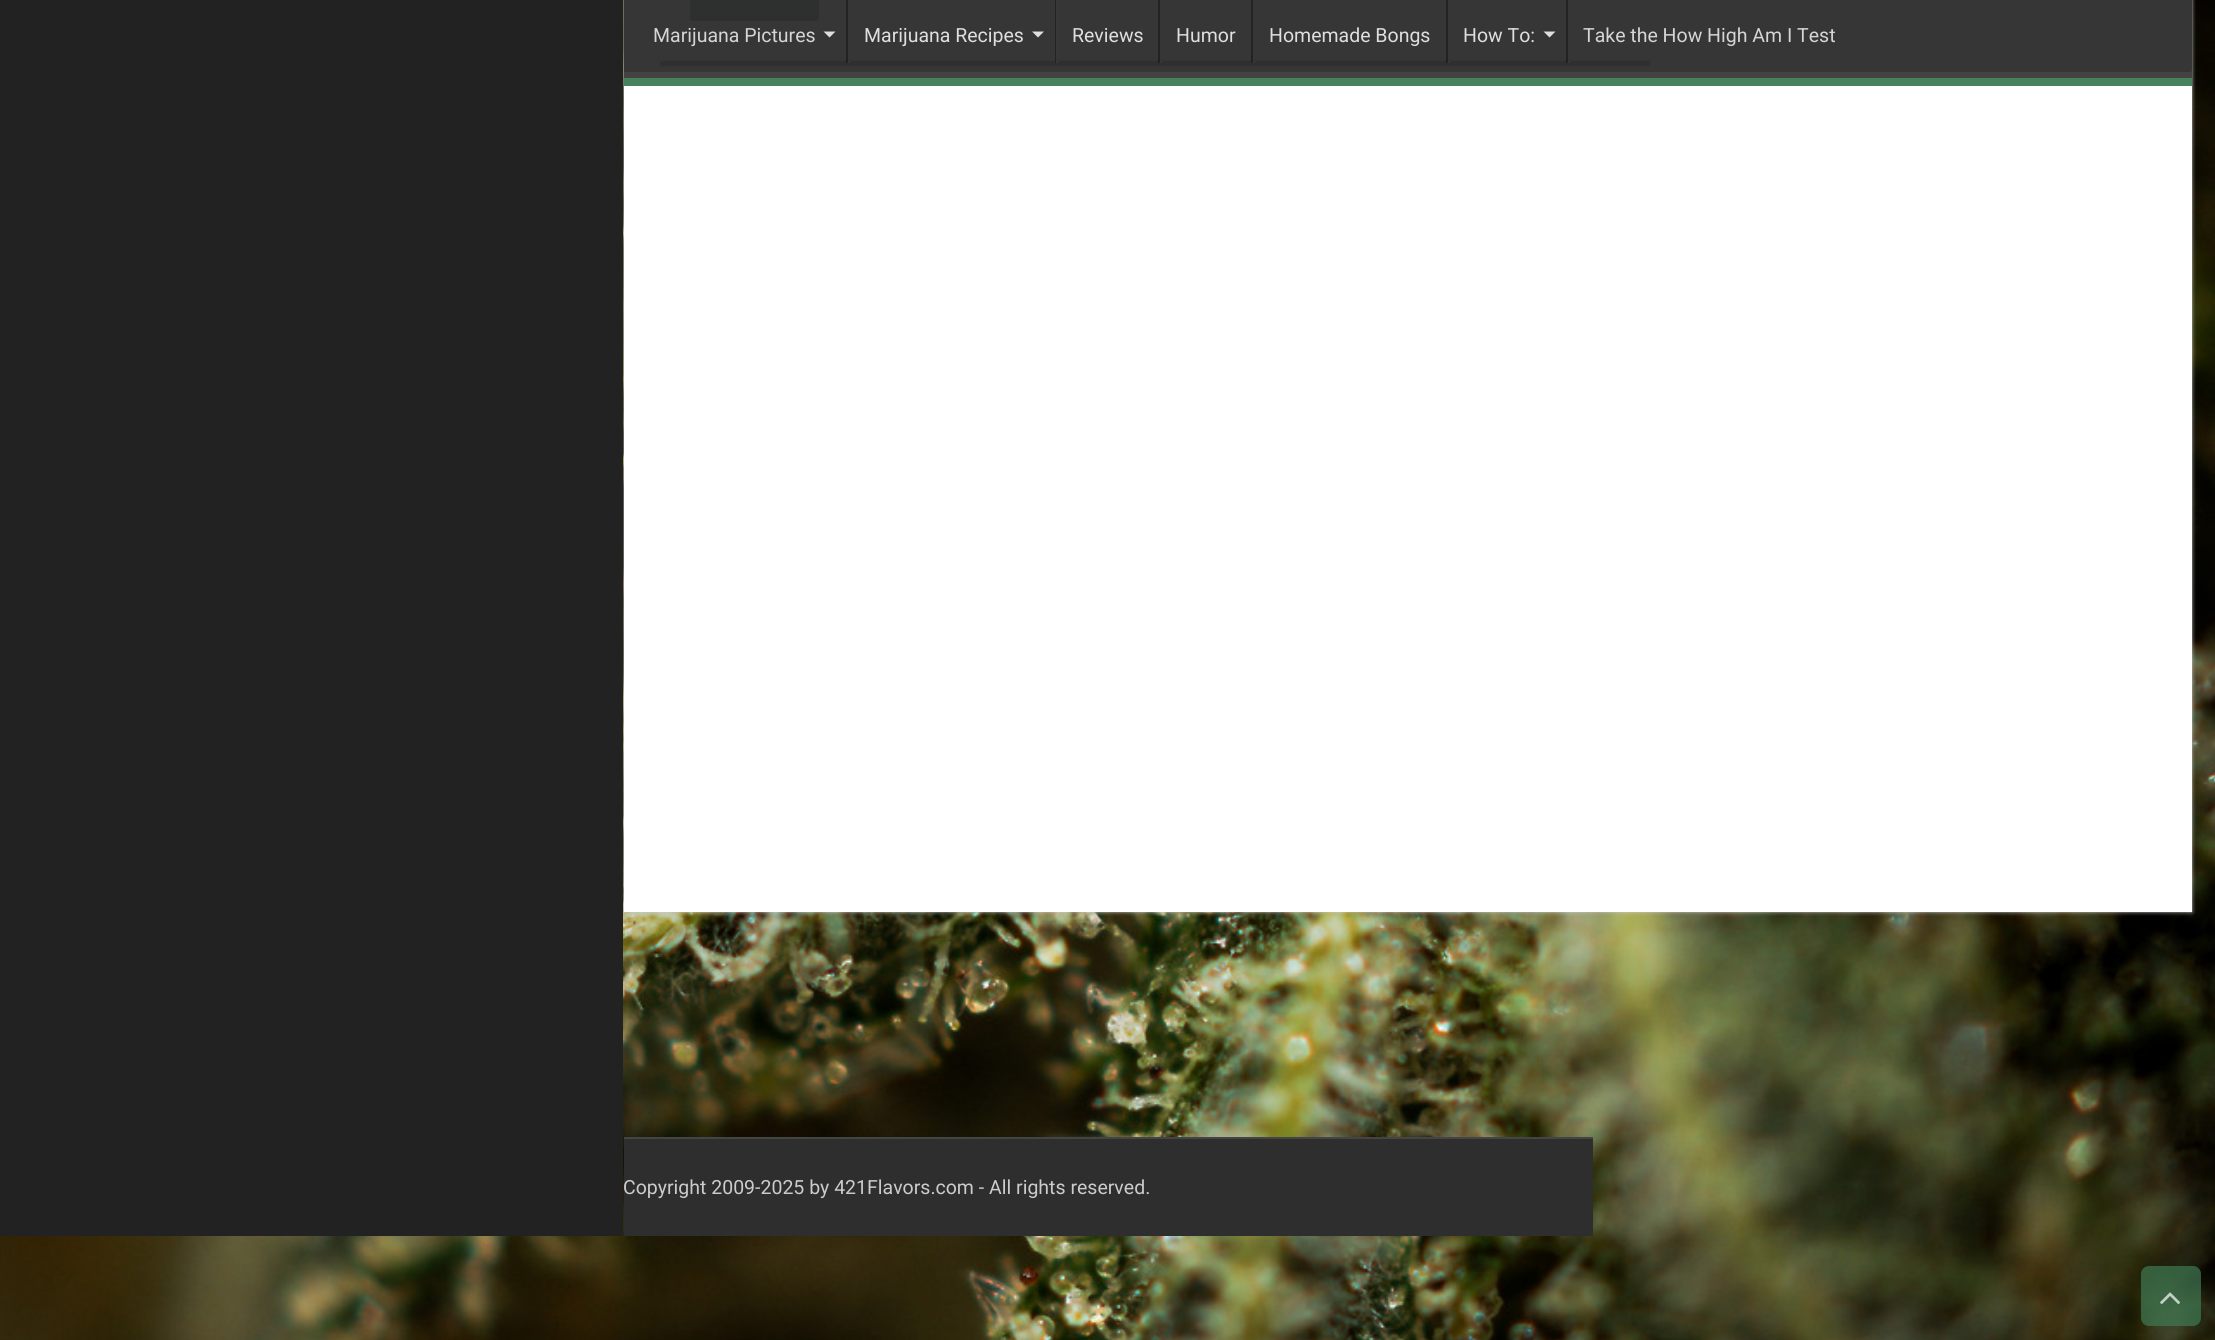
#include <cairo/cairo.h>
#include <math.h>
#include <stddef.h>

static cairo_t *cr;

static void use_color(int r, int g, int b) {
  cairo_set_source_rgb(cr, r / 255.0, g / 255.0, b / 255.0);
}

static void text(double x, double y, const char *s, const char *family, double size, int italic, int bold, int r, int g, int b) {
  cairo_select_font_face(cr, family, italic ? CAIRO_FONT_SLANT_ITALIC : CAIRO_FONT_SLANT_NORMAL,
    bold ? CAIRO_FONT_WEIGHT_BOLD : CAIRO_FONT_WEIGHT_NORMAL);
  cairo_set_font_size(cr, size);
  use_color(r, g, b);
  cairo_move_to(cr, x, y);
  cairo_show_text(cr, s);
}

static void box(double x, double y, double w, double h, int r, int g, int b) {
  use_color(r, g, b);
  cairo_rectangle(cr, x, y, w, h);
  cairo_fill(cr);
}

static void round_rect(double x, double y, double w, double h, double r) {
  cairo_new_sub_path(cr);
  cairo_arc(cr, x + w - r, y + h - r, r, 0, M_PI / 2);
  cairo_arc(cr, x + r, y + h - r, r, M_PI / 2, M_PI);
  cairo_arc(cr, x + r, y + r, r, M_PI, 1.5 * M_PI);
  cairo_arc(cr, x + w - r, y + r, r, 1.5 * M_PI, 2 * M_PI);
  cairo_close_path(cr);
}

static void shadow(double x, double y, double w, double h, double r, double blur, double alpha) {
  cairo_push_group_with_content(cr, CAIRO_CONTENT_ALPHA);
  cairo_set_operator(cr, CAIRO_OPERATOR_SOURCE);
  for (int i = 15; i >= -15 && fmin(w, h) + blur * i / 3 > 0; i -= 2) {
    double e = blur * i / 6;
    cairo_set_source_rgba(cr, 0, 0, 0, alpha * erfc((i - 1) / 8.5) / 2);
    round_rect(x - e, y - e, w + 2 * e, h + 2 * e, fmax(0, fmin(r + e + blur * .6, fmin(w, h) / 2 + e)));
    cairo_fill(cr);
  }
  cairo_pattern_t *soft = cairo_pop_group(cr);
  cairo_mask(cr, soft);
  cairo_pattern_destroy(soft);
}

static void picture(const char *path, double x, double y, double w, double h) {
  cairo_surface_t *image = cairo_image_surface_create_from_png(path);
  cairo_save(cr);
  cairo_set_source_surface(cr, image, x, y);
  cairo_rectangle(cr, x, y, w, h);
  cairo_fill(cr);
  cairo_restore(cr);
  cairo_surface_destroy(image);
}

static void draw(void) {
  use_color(255, 255, 255);
  cairo_paint(cr);
  picture("img_01.png", 0, 0, 2215, 1340);
  use_color(202, 202, 202);
  shadow(624, -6, 1568, 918, 0, 2, 1);
  box(0, 0, 623, 1236, 34, 34, 34);
  box(624, 0, 1568, 912, 255, 255, 255);
  cairo_save(cr);
  cairo_set_fill_rule(cr, CAIRO_FILL_RULE_EVEN_ODD);
  cairo_new_path(cr);
  cairo_move_to(cr, 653, 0);
  cairo_line_to(cr, 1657, 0);
  cairo_line_to(cr, 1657, 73);
  cairo_line_to(cr, 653, 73);
  cairo_close_path(cr);
  cairo_move_to(cr, 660, -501);
  cairo_line_to(cr, 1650, -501);
  cairo_line_to(cr, 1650, 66);
  cairo_line_to(cr, 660, 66);
  cairo_close_path(cr);
  cairo_clip(cr);
  use_color(202, 202, 202);
  shadow(660, -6, 990, 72, 0, 2, 1);
  cairo_restore(cr);
  box(660, 61, 990, 5, 64, 122, 84);
  box(660, 59, 990, 2, 242, 242, 242);
  use_color(64, 122, 84);
  round_rect(690, -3, 129, 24, 3);
  cairo_fill(cr);
  cairo_set_source_rgba(cr, 0.176, 0.176, 0.176, 0.95);
  cairo_rectangle(cr, 624, 0, 1568, 72);
  cairo_fill(cr);
  cairo_save(cr);
  cairo_rectangle(cr, 624, 0, 1568, 78);
  cairo_clip(cr);
  use_color(67, 67, 67);
  cairo_set_fill_rule(cr, CAIRO_FILL_RULE_EVEN_ODD);
  cairo_new_path(cr);
  cairo_move_to(cr, 476, -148);
  cairo_line_to(cr, 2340, -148);
  cairo_line_to(cr, 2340, 226);
  cairo_line_to(cr, 476, 226);
  cairo_close_path(cr);
  cairo_move_to(cr, 622, -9);
  cairo_line_to(cr, 2190, -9);
  cairo_curve_to(cr, 2191, -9, 2192, -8, 2192, -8);
  cairo_line_to(cr, 2192, 70);
  cairo_curve_to(cr, 2192, 71, 2191, 72, 2190, 72);
  cairo_line_to(cr, 622, 72);
  cairo_curve_to(cr, 622, 72, 621, 71, 621, 70);
  cairo_line_to(cr, 621, -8);
  cairo_curve_to(cr, 621, -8, 622, -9, 622, -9);
  cairo_close_path(cr);
  cairo_fill(cr);
  cairo_restore(cr);
  box(624, 78, 1568, 8, 74, 129, 93);
  use_color(223, 223, 223);
  cairo_new_path(cr);
  cairo_move_to(cr, 823.5, 31.5);
  cairo_line_to(cr, 835.5, 31.5);
  cairo_line_to(cr, 829.5, 37.5);
  cairo_close_path(cr);
  cairo_fill(cr);
  cairo_set_source_rgba(cr, 0.133, 0.133, 0.133, 0.95);
  cairo_rectangle(cr, 846, 0, 2, 63);
  cairo_fill(cr);
  cairo_set_source_rgba(cr, 0.22, 0.22, 0.22, 0.95);
  cairo_rectangle(cr, 848, 61, 2, 2);
  cairo_fill(cr);
  use_color(223, 223, 223);
  cairo_new_path(cr);
  cairo_move_to(cr, 1032, 31.5);
  cairo_line_to(cr, 1044, 31.5);
  cairo_line_to(cr, 1038, 37.5);
  cairo_close_path(cr);
  cairo_fill(cr);
  cairo_set_source_rgba(cr, 0.133, 0.133, 0.133, 0.95);
  cairo_rectangle(cr, 1055, 0, 2, 63);
  cairo_fill(cr);
  cairo_set_source_rgba(cr, 0.22, 0.22, 0.22, 0.95);
  cairo_rectangle(cr, 1056, 0, 2, 63);
  cairo_fill(cr);
  cairo_set_source_rgba(cr, 0.133, 0.133, 0.133, 0.95);
  cairo_rectangle(cr, 1158, 0, 2, 63);
  cairo_fill(cr);
  cairo_set_source_rgba(cr, 0.22, 0.22, 0.22, 0.95);
  cairo_rectangle(cr, 1160, 61, 2, 2);
  cairo_fill(cr);
  cairo_set_source_rgba(cr, 0.133, 0.133, 0.133, 0.95);
  cairo_rectangle(cr, 1251, 0, 2, 63);
  cairo_fill(cr);
  cairo_set_source_rgba(cr, 0.22, 0.22, 0.22, 0.95);
  cairo_rectangle(cr, 1253, 61, 2, 2);
  cairo_fill(cr);
  cairo_set_source_rgba(cr, 0.133, 0.133, 0.133, 0.95);
  cairo_rectangle(cr, 1446, 0, 2, 63);
  cairo_fill(cr);
  cairo_set_source_rgba(cr, 0.22, 0.22, 0.22, 0.95);
  cairo_rectangle(cr, 1448, 61, 2, 2);
  cairo_fill(cr);
  use_color(223, 223, 223);
  cairo_new_path(cr);
  cairo_move_to(cr, 1543.5, 31.5);
  cairo_line_to(cr, 1555.5, 31.5);
  cairo_line_to(cr, 1549.5, 37.5);
  cairo_close_path(cr);
  cairo_fill(cr);
  cairo_set_source_rgba(cr, 0.133, 0.133, 0.133, 0.95);
  cairo_rectangle(cr, 1566, 0, 2, 63);
  cairo_fill(cr);
  cairo_set_source_rgba(cr, 0.22, 0.22, 0.22, 0.95);
  cairo_rectangle(cr, 1568, 61, 2, 2);
  cairo_fill(cr);
  box(624, 1139, 969, 97, 46, 46, 46);
  box(624, 1137, 969, 2, 68, 68, 68);
  cairo_set_source_rgba(cr, 0.251, 0.478, 0.329, 0.7);
  round_rect(2141, 1266, 60, 60, 8);
  cairo_fill(cr);
  picture("img_02.png", 2160, 1292, 20, 12);
  text(653, 42, "Marijuana Pictures", "Roboto", 19.5, 0, 0, 213, 213, 213);
  text(864, 42, "Marijuana Recipes", "Roboto", 19.5, 0, 0, 223, 223, 223);
  text(1072, 42, "Reviews", "Roboto", 19.5, 0, 0, 223, 223, 223);
  text(1176, 42, "Humor", "Roboto", 19.5, 0, 0, 223, 223, 223);
  text(1269, 42, "Homemade Bongs", "Roboto", 19.5, 0, 0, 223, 223, 223);
  text(1463, 42, "How To:", "Roboto", 19.5, 0, 0, 223, 223, 223);
  text(1583, 42, "Take the How High Am I Test", "Roboto", 19.5, 0, 0, 213, 213, 213);
  text(623, 1194, "Copyright 2009-2025 by 421Flavors.com - All rights reserved.", "Roboto", 19.5, 0, 0, 204, 204, 204);
}

int main(void) {
  cairo_surface_t *surface = cairo_image_surface_create(CAIRO_FORMAT_RGB24, 2215, 1340);
  cr = cairo_create(surface);
  cairo_font_options_t *options = cairo_font_options_create();
  cairo_font_options_set_hint_metrics(options, CAIRO_HINT_METRICS_OFF);
  cairo_font_options_set_hint_style(options, CAIRO_HINT_STYLE_NONE);
  cairo_set_font_options(cr, options);
  cairo_set_miter_limit(cr, 4);
  draw();
  cairo_surface_write_to_png(surface, "out.png");
  cairo_font_options_destroy(options);
  cairo_destroy(cr);
  cairo_surface_destroy(surface);
  return 0;
}
